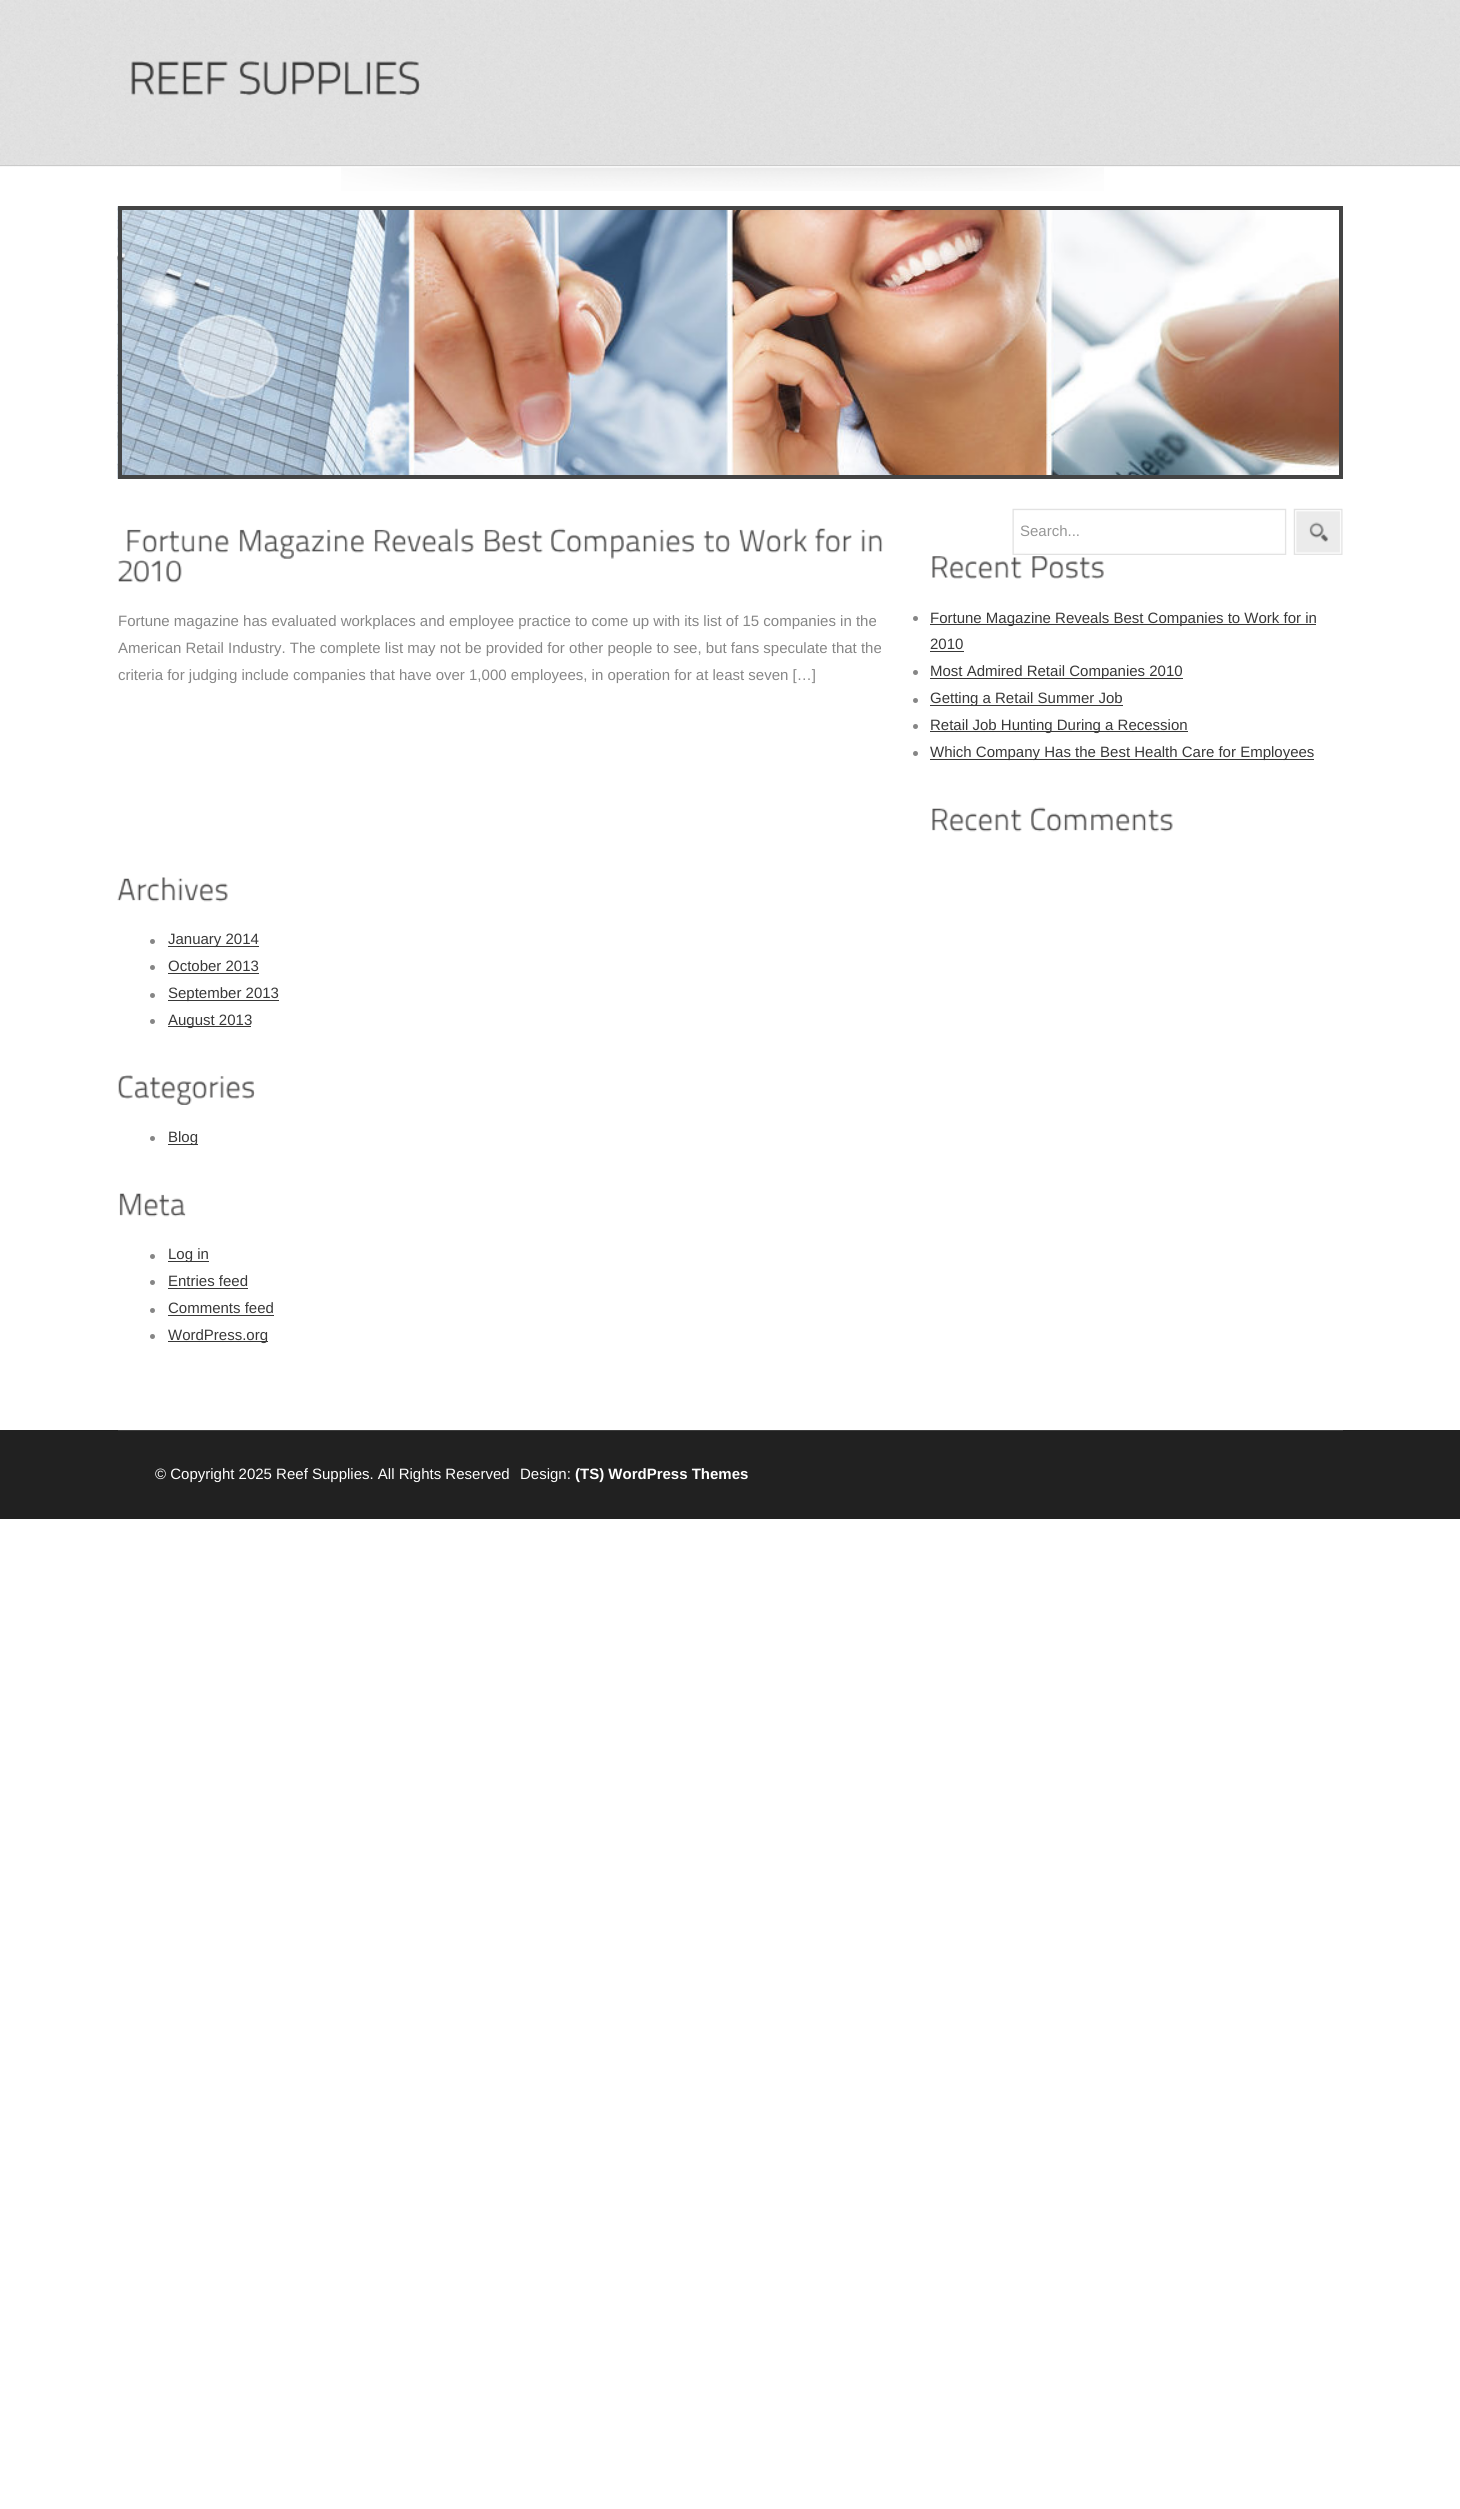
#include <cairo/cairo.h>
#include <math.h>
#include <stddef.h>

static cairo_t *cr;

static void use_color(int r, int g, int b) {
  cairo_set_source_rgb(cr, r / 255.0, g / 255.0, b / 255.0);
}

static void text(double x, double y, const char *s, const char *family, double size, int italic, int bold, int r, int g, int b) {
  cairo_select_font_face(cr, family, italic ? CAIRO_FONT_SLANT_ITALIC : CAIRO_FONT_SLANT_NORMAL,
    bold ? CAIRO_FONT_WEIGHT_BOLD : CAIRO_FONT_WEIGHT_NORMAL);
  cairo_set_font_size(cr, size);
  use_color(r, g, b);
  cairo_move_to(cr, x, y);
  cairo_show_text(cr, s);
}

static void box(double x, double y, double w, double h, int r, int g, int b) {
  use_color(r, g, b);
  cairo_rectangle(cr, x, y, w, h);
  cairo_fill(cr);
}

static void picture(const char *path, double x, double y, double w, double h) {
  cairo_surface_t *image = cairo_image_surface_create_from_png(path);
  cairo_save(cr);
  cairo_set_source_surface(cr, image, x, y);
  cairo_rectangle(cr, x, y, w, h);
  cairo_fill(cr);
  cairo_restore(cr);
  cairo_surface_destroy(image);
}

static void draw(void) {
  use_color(255, 255, 255);
  cairo_paint(cr);
  picture("img_01.png", 0, 0, 1460, 167);
  box(0, 165, 1460, 1, 202, 202, 202);
  picture("img_02.png", 131, 61, 97, 35);
  picture("img_03.png", 239, 61, 181, 35);
  picture("img_04.png", 341, 167, 763, 24);
  picture("img_05.png", 117, 206, 1222, 273);
  cairo_rectangle(cr, 120, 208, 1221, 269);
  use_color(68, 68, 68);
  cairo_set_line_width(cr, 4);
  cairo_stroke(cr);
  picture("img_06.png", 1012, 508, 275, 47);
  picture("img_07.png", 1293, 508, 50, 47);
  picture("img_08.png", 127, 529, 102, 24);
  picture("img_09.png", 239, 529, 125, 30);
  picture("img_10.png", 374, 528, 100, 25);
  picture("img_11.png", 484, 529, 59, 24);
  picture("img_12.png", 551, 528, 143, 31);
  picture("img_13.png", 703, 531, 28, 22);
  picture("img_14.png", 738, 528, 70, 25);
  picture("img_15.png", 815, 528, 37, 25);
  picture("img_16.png", 861, 529, 22, 23);
  picture("img_17.png", 118, 560, 64, 23);
  picture("img_18.png", 932, 556, 90, 23);
  picture("img_19.png", 1032, 556, 72, 23);
  use_color(134, 134, 134);
  cairo_arc(cr, 915.5, 618.5, 2.5, 0, 2 * M_PI);
  cairo_fill(cr);
  box(930, 624, 386, 1, 56, 56, 56);
  box(930, 651, 34, 1, 56, 56, 56);
  use_color(134, 134, 134);
  cairo_arc(cr, 915.5, 672.5, 2.5, 0, 2 * M_PI);
  cairo_fill(cr);
  box(930, 678, 253, 1, 56, 56, 56);
  use_color(134, 134, 134);
  cairo_arc(cr, 915.5, 700.5, 2.5, 0, 2 * M_PI);
  cairo_fill(cr);
  box(930, 705, 193, 1, 56, 56, 56);
  use_color(134, 134, 134);
  cairo_arc(cr, 915.5, 726.5, 2.5, 0, 2 * M_PI);
  cairo_fill(cr);
  box(930, 731, 258, 1, 56, 56, 56);
  use_color(134, 134, 134);
  cairo_arc(cr, 915.5, 753.5, 2.5, 0, 2 * M_PI);
  cairo_fill(cr);
  box(930, 759, 384, 1, 56, 56, 56);
  picture("img_20.png", 932, 808, 90, 24);
  picture("img_21.png", 1031, 807, 142, 25);
  picture("img_22.png", 117, 877, 111, 25);
  use_color(134, 134, 134);
  cairo_arc(cr, 152.5, 941.5, 2.5, 0, 2 * M_PI);
  cairo_fill(cr);
  box(168, 946, 91, 1, 56, 56, 56);
  use_color(134, 134, 134);
  cairo_arc(cr, 152.5, 967.5, 2.5, 0, 2 * M_PI);
  cairo_fill(cr);
  box(168, 973, 91, 1, 56, 56, 56);
  use_color(134, 134, 134);
  cairo_arc(cr, 152.5, 995.5, 2.5, 0, 2 * M_PI);
  cairo_fill(cr);
  box(168, 1000, 111, 1, 56, 56, 56);
  use_color(134, 134, 134);
  cairo_arc(cr, 152.5, 1021.5, 2.5, 0, 2 * M_PI);
  cairo_fill(cr);
  box(168, 1026, 83, 1, 56, 56, 56);
  picture("img_23.png", 118, 1075, 137, 30);
  use_color(134, 134, 134);
  cairo_arc(cr, 152.5, 1138.5, 2.5, 0, 2 * M_PI);
  cairo_fill(cr);
  box(168, 1144, 30, 1, 56, 56, 56);
  picture("img_24.png", 119, 1193, 67, 24);
  use_color(134, 134, 134);
  cairo_arc(cr, 152.5, 1256.5, 2.5, 0, 2 * M_PI);
  cairo_fill(cr);
  box(168, 1261, 41, 1, 56, 56, 56);
  use_color(134, 134, 134);
  cairo_arc(cr, 152.5, 1282.5, 2.5, 0, 2 * M_PI);
  cairo_fill(cr);
  box(168, 1288, 80, 1, 56, 56, 56);
  use_color(134, 134, 134);
  cairo_arc(cr, 152.5, 1310.5, 2.5, 0, 2 * M_PI);
  cairo_fill(cr);
  box(168, 1315, 106, 1, 56, 56, 56);
  use_color(134, 134, 134);
  cairo_arc(cr, 152.5, 1336.5, 2.5, 0, 2 * M_PI);
  cairo_fill(cr);
  box(168, 1341, 100, 1, 56, 56, 56);
  box(0, 1430, 1460, 89, 33, 33, 33);
  box(118, 1430, 1225, 1, 60, 60, 60);
  text(1020, 536, "Search...", "Liberation Sans", 15, 0, 0, 150, 150, 150);
  text(118, 626, "Fortune magazine has evaluated workplaces and employee practice to come up with its list of 15 companies in the", "Liberation Sans", 15, 0, 0, 134, 134, 134);
  text(118, 653, "American Retail Industry. The complete list may not be provided for other people to see, but fans speculate that the", "Liberation Sans", 15, 0, 0, 134, 134, 134);
  text(118, 680, "criteria for judging include companies that have over 1,000 employees, in operation for at least seven […]", "Liberation Sans", 15, 0, 0, 134, 134, 134);
  text(930, 623, "Fortune Magazine Reveals Best Companies to Work for in", "Liberation Sans", 15, 0, 0, 56, 56, 56);
  text(930, 649, "2010", "Liberation Sans", 15, 0, 0, 56, 56, 56);
  text(930, 676, "Most Admired Retail Companies 2010", "Liberation Sans", 15, 0, 0, 56, 56, 56);
  text(930, 703, "Getting a Retail Summer Job", "Liberation Sans", 15, 0, 0, 56, 56, 56);
  text(930, 730, "Retail Job Hunting During a Recession", "Liberation Sans", 15, 0, 0, 56, 56, 56);
  text(930, 757, "Which Company Has the Best Health Care for Employees", "Liberation Sans", 15, 0, 0, 56, 56, 56);
  text(168, 944, "January 2014", "Liberation Sans", 15, 0, 0, 56, 56, 56);
  text(168, 971, "October 2013", "Liberation Sans", 15, 0, 0, 56, 56, 56);
  text(168, 998, "September 2013", "Liberation Sans", 15, 0, 0, 56, 56, 56);
  text(168, 1025, "August 2013", "Liberation Sans", 15, 0, 0, 56, 56, 56);
  text(168, 1142, "Blog", "Liberation Sans", 15, 0, 0, 56, 56, 56);
  text(168, 1259, "Log in", "Liberation Sans", 15, 0, 0, 56, 56, 56);
  text(168, 1286, "Entries feed", "Liberation Sans", 15, 0, 0, 56, 56, 56);
  text(168, 1313, "Comments feed", "Liberation Sans", 15, 0, 0, 56, 56, 56);
  text(168, 1340, "WordPress.org", "Liberation Sans", 15, 0, 0, 56, 56, 56);
  text(155, 1479, "© Copyright 2025 Reef Supplies. All Rights Reserved", "Liberation Sans", 15, 0, 0, 255, 255, 255);
  text(520, 1479, "Design:", "Liberation Sans", 15, 0, 0, 255, 255, 255);
  text(575, 1479, "(TS) WordPress Themes", "Liberation Sans", 15, 0, 1, 255, 255, 255);
}

int main(void) {
  cairo_surface_t *surface = cairo_image_surface_create(CAIRO_FORMAT_RGB24, 1460, 2509);
  cr = cairo_create(surface);
  cairo_font_options_t *options = cairo_font_options_create();
  cairo_font_options_set_hint_metrics(options, CAIRO_HINT_METRICS_OFF);
  cairo_font_options_set_hint_style(options, CAIRO_HINT_STYLE_NONE);
  cairo_set_font_options(cr, options);
  cairo_set_miter_limit(cr, 4);
  draw();
  cairo_surface_write_to_png(surface, "out.png");
  cairo_font_options_destroy(options);
  cairo_destroy(cr);
  cairo_surface_destroy(surface);
  return 0;
}
